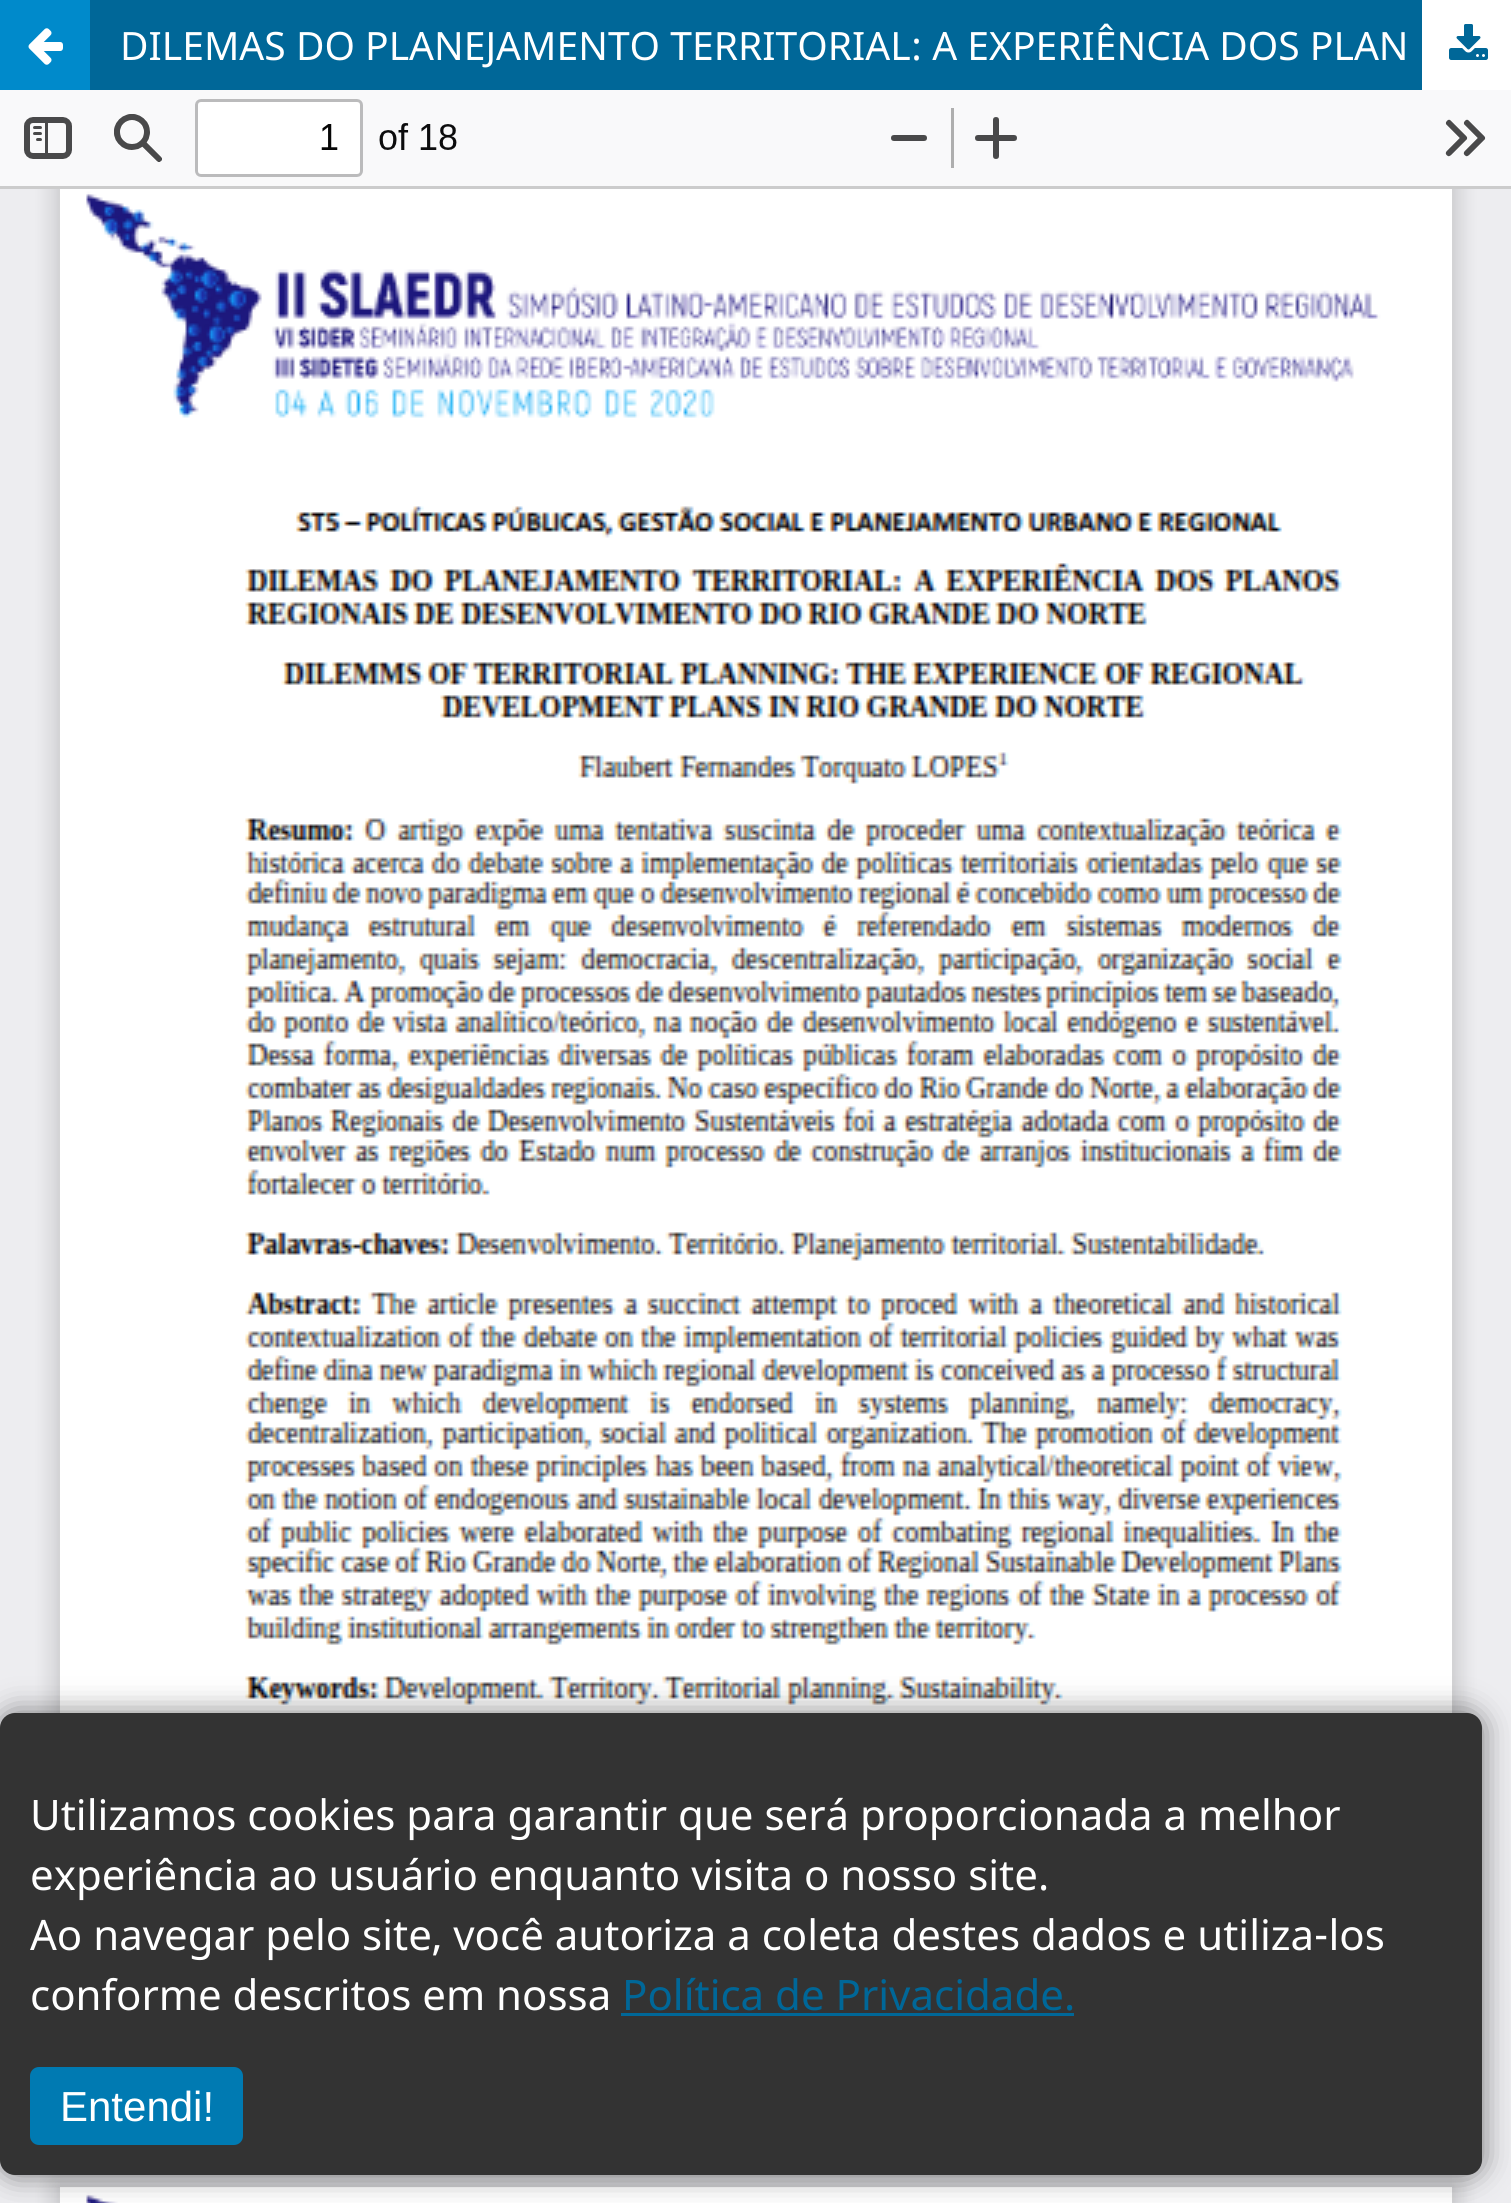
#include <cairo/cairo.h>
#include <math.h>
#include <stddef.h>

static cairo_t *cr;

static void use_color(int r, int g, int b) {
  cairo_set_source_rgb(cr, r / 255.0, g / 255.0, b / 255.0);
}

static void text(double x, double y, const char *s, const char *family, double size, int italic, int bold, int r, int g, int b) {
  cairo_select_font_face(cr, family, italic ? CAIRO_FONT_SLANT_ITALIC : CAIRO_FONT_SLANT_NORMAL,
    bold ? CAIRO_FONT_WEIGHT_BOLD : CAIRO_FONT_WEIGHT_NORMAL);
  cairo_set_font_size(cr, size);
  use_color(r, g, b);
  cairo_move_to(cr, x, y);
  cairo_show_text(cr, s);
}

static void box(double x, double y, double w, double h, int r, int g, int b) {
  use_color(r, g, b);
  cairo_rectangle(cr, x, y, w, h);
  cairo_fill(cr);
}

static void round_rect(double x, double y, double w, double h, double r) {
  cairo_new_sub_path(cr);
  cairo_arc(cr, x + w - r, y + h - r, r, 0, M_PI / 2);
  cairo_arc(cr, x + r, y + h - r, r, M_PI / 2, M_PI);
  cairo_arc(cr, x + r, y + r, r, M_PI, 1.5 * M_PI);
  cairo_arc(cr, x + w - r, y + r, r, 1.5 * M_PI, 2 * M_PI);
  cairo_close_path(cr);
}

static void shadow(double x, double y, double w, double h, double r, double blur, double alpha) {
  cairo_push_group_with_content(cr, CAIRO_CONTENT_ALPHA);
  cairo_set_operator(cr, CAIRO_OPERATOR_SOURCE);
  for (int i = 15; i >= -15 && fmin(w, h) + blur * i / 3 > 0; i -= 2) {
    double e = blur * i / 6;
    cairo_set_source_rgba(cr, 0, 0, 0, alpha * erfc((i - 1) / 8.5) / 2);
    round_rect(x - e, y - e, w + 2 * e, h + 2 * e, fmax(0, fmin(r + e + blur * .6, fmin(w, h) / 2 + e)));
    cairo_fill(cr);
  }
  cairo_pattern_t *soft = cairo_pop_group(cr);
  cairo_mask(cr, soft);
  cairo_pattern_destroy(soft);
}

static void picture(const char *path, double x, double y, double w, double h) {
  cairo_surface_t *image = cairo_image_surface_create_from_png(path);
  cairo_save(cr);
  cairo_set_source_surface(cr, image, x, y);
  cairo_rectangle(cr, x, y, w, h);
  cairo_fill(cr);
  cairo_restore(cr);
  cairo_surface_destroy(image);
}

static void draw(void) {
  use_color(255, 255, 255);
  cairo_paint(cr);
  box(90, 0, 1332, 90, 0, 103, 152);
  box(0, 0, 90, 90, 0, 138, 203);
  picture("img_01.png", 28, 28, 35, 37);
  picture("img_02.png", 1449, 24, 39, 36);
  picture("img_03.png", 0, 90, 1511, 2113);
  use_color(0, 0, 0);
  shadow(0, 1713, 1482, 462, 15, 15, 0.5);
  use_color(51, 51, 51);
  round_rect(0, 1713, 1482, 462, 15);
  cairo_fill(cr);
  box(621, 2013, 453, 3, 0, 103, 152);
  use_color(0, 122, 178);
  round_rect(30, 2067, 213, 78, 9);
  cairo_fill(cr);
  text(120, 60, "DILEMAS DO PLANEJAMENTO TERRITORIAL: A EXPERIÊNCIA DOS PLAN", "Noto Sans", 39.05, 0, 0, 255, 255, 255);
  text(30, 1830, "Utilizamos cookies para garantir que será proporcionada a melhor", "Noto Sans", 42, 0, 0, 255, 255, 255);
  text(30, 1890, "experiência ao usuário enquanto visita o nosso site.", "Noto Sans", 42, 0, 0, 255, 255, 255);
  text(30, 1950, "Ao navegar pelo site, você autoriza a coleta destes dados e utiliza-los", "Noto Sans", 42, 0, 0, 255, 255, 255);
  text(30, 2010, "conforme descritos em nossa", "Noto Sans", 42, 0, 0, 255, 255, 255);
  text(622, 2010, "Política de Privacidade.", "Noto Sans", 42, 0, 0, 0, 103, 152);
  text(60, 2121, "Entendi!", "Liberation Sans", 42, 0, 0, 255, 255, 255);
}

int main(void) {
  cairo_surface_t *surface = cairo_image_surface_create(CAIRO_FORMAT_RGB24, 1511, 2203);
  cr = cairo_create(surface);
  cairo_font_options_t *options = cairo_font_options_create();
  cairo_font_options_set_hint_metrics(options, CAIRO_HINT_METRICS_OFF);
  cairo_font_options_set_hint_style(options, CAIRO_HINT_STYLE_NONE);
  cairo_set_font_options(cr, options);
  cairo_set_miter_limit(cr, 4);
  draw();
  cairo_surface_write_to_png(surface, "out.png");
  cairo_font_options_destroy(options);
  cairo_destroy(cr);
  cairo_surface_destroy(surface);
  return 0;
}
